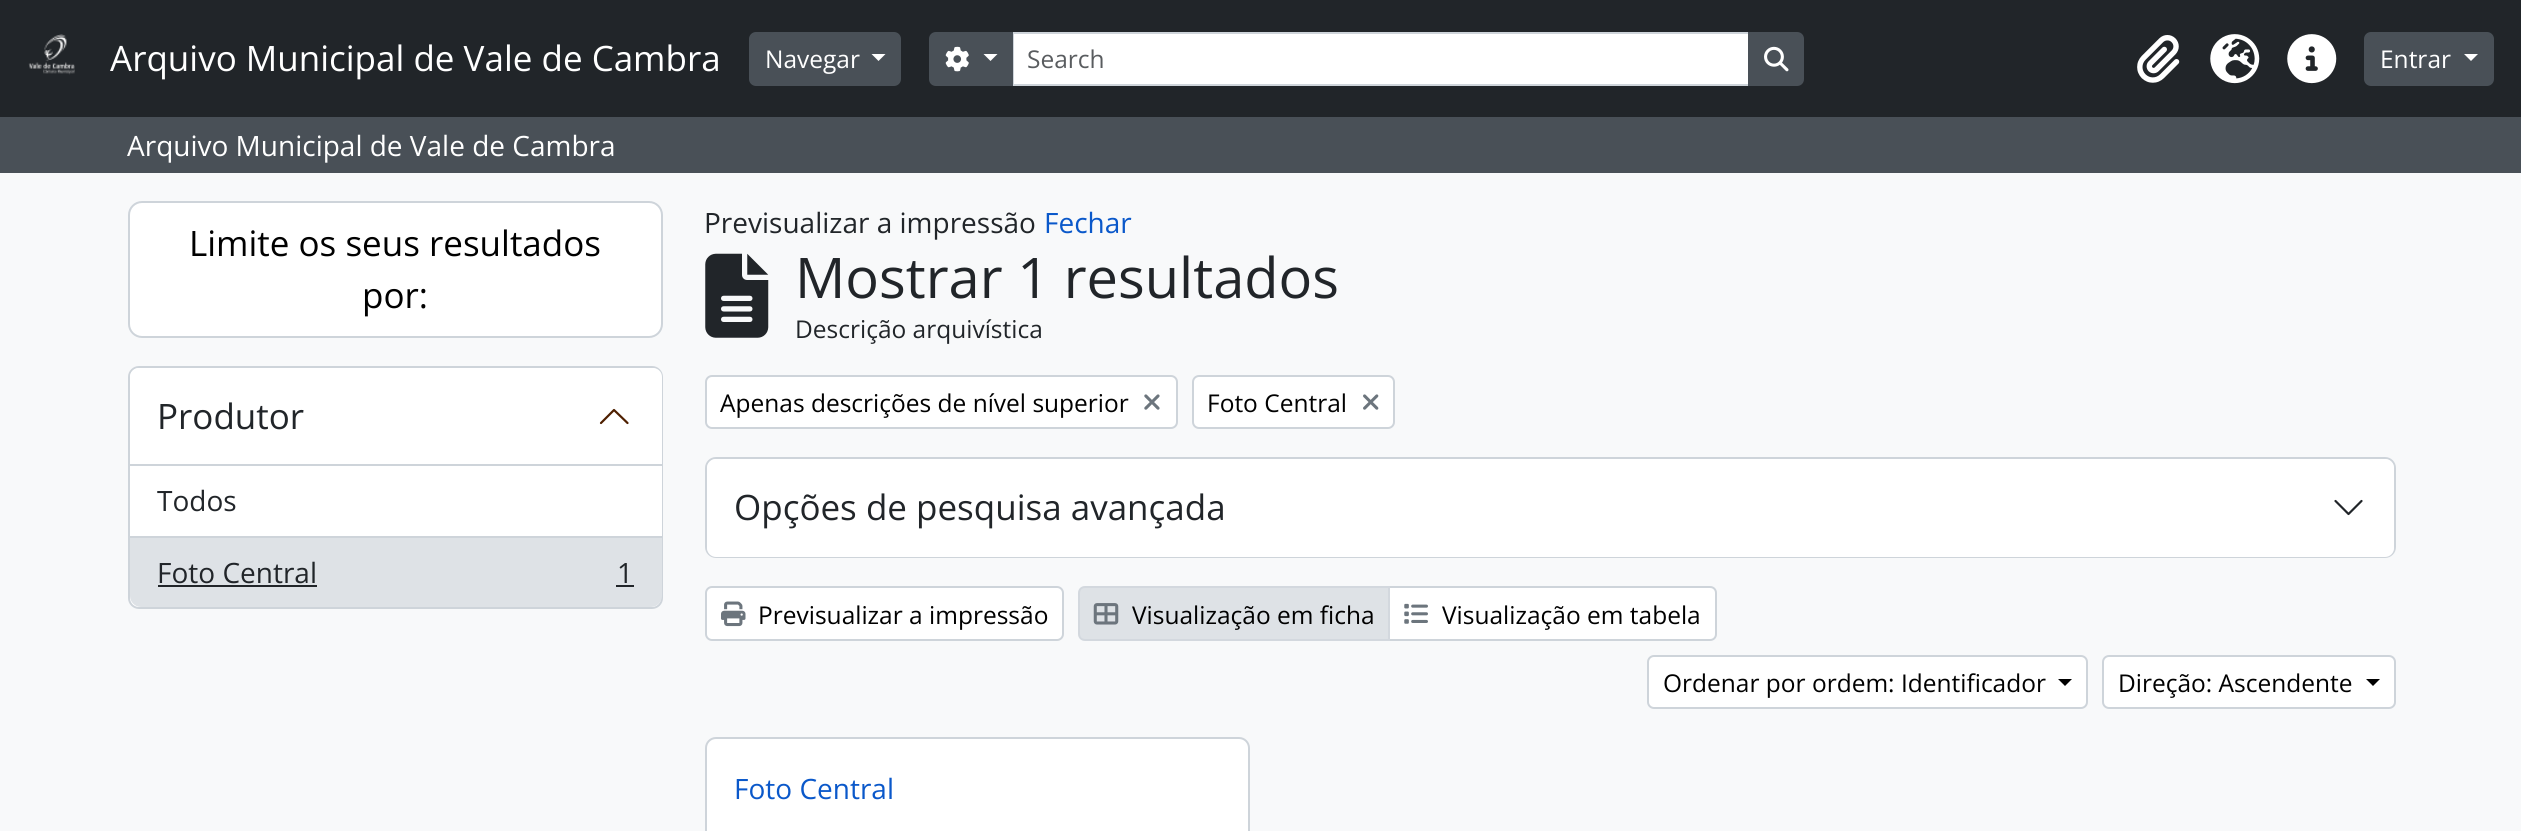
#include <cairo/cairo.h>
#include <math.h>
#include <stddef.h>

static cairo_t *cr;

static void use_color(int r, int g, int b) {
  cairo_set_source_rgb(cr, r / 255.0, g / 255.0, b / 255.0);
}

static void text(double x, double y, const char *s, const char *family, double size, int italic, int bold, int r, int g, int b) {
  cairo_select_font_face(cr, family, italic ? CAIRO_FONT_SLANT_ITALIC : CAIRO_FONT_SLANT_NORMAL,
    bold ? CAIRO_FONT_WEIGHT_BOLD : CAIRO_FONT_WEIGHT_NORMAL);
  cairo_set_font_size(cr, size);
  use_color(r, g, b);
  cairo_move_to(cr, x, y);
  cairo_show_text(cr, s);
}

static void box(double x, double y, double w, double h, int r, int g, int b) {
  use_color(r, g, b);
  cairo_rectangle(cr, x, y, w, h);
  cairo_fill(cr);
}

static void round_rect(double x, double y, double w, double h, double r) {
  cairo_new_sub_path(cr);
  cairo_arc(cr, x + w - r, y + h - r, r, 0, M_PI / 2);
  cairo_arc(cr, x + r, y + h - r, r, M_PI / 2, M_PI);
  cairo_arc(cr, x + r, y + r, r, M_PI, 1.5 * M_PI);
  cairo_arc(cr, x + w - r, y + r, r, 1.5 * M_PI, 2 * M_PI);
  cairo_close_path(cr);
}

static void picture(const char *path, double x, double y, double w, double h) {
  cairo_surface_t *image = cairo_image_surface_create_from_png(path);
  cairo_save(cr);
  cairo_set_source_surface(cr, image, x, y);
  cairo_rectangle(cr, x, y, w, h);
  cairo_fill(cr);
  cairo_restore(cr);
  cairo_surface_destroy(image);
}

static void draw(void) {
  use_color(248, 249, 250);
  cairo_paint(cr);
  box(0, 0, 2521, 117, 33, 37, 41);
  picture("img_01.png", 28, 34, 47, 41);
  use_color(73, 80, 87);
  round_rect(750, 33, 150, 52, 6);
  cairo_fill_preserve(cr);
  cairo_stroke(cr);
  use_color(255, 255, 255);
  cairo_new_path(cr);
  cairo_move_to(cr, 871.5, 54);
  cairo_line_to(cr, 885.5, 54);
  cairo_line_to(cr, 878.5, 61);
  cairo_close_path(cr);
  cairo_fill(cr);
  cairo_rectangle(cr, 1013, 33, 736, 52);
  cairo_fill_preserve(cr);
  use_color(206, 212, 218);
  cairo_stroke(cr);
  use_color(73, 80, 87);
  cairo_new_path(cr);
  cairo_move_to(cr, 936, 33);
  cairo_line_to(cr, 1012, 33);
  cairo_line_to(cr, 1012, 85);
  cairo_line_to(cr, 936, 85);
  cairo_curve_to(cr, 932.5, 85, 930, 82.5, 930, 79);
  cairo_line_to(cr, 930, 39);
  cairo_curve_to(cr, 930, 35.5, 932.5, 33, 936, 33);
  cairo_close_path(cr);
  cairo_fill_preserve(cr);
  cairo_stroke(cr);
  picture("img_02.png", 945, 46, 24, 26);
  use_color(255, 255, 255);
  cairo_new_path(cr);
  cairo_move_to(cr, 983.5, 54);
  cairo_line_to(cr, 997.5, 54);
  cairo_line_to(cr, 990.5, 61);
  cairo_close_path(cr);
  cairo_fill(cr);
  use_color(73, 80, 87);
  cairo_new_path(cr);
  cairo_move_to(cr, 1749, 33);
  cairo_line_to(cr, 1797, 33);
  cairo_curve_to(cr, 1800.5, 33, 1803, 35.5, 1803, 39);
  cairo_line_to(cr, 1803, 79);
  cairo_curve_to(cr, 1803, 82.5, 1800.5, 85, 1797, 85);
  cairo_line_to(cr, 1749, 85);
  cairo_close_path(cr);
  cairo_fill_preserve(cr);
  cairo_stroke(cr);
  picture("img_03.png", 1764, 46, 25, 26);
  picture("img_04.png", 2137, 35, 43, 48);
  picture("img_05.png", 2210, 34, 50, 50);
  picture("img_06.png", 2287, 34, 50, 50);
  round_rect(2365, 33, 128, 52, 6);
  cairo_fill_preserve(cr);
  cairo_stroke(cr);
  use_color(255, 255, 255);
  cairo_new_path(cr);
  cairo_move_to(cr, 2464, 54);
  cairo_line_to(cr, 2478, 54);
  cairo_line_to(cr, 2471, 61);
  cairo_close_path(cr);
  cairo_fill(cr);
  box(0, 117, 2521, 56, 73, 80, 87);
  use_color(255, 255, 255);
  round_rect(129, 202, 533, 135, 13);
  cairo_fill_preserve(cr);
  use_color(206, 212, 218);
  cairo_stroke(cr);
  use_color(255, 255, 255);
  round_rect(129, 367, 533, 241, 10);
  cairo_fill_preserve(cr);
  use_color(206, 212, 218);
  cairo_stroke(cr);
  use_color(255, 255, 255);
  cairo_new_path(cr);
  cairo_move_to(cr, 139, 368);
  cairo_line_to(cr, 653, 368);
  cairo_curve_to(cr, 658, 368, 662, 372, 662, 377);
  cairo_line_to(cr, 662, 466);
  cairo_line_to(cr, 130, 466);
  cairo_line_to(cr, 130, 377);
  cairo_curve_to(cr, 130, 372, 134, 368, 139, 368);
  cairo_close_path(cr);
  cairo_fill(cr);
  box(130, 464, 532, 2, 206, 212, 218);
  cairo_new_path(cr);
  cairo_move_to(cr, 627.5, 423);
  cairo_line_to(cr, 614, 410);
  cairo_line_to(cr, 601, 423);
  use_color(78, 31, 0);
  cairo_set_line_width(cr, 2.2);
  cairo_set_line_cap(cr, CAIRO_LINE_CAP_ROUND);
  cairo_set_line_join(cr, CAIRO_LINE_JOIN_ROUND);
  cairo_stroke(cr);
  box(661, 466, 1, 70, 255, 255, 255);
  use_color(222, 226, 230);
  cairo_new_path(cr);
  cairo_move_to(cr, 130, 537);
  cairo_line_to(cr, 662, 537);
  cairo_line_to(cr, 662, 596);
  cairo_curve_to(cr, 662, 602, 657, 607, 651, 607);
  cairo_line_to(cr, 141, 607);
  cairo_curve_to(cr, 135, 607, 130, 602, 130, 596);
  cairo_close_path(cr);
  cairo_fill(cr);
  box(130, 536, 532, 2, 206, 212, 218);
  box(158, 585, 159, 2, 33, 37, 41);
  box(616, 585, 18, 2, 33, 37, 41);
  picture("img_07.png", 705, 253, 64, 85);
  use_color(255, 255, 255);
  round_rect(706, 376, 471, 52, 6);
  cairo_fill_preserve(cr);
  use_color(206, 212, 218);
  cairo_set_line_width(cr, 2);
  cairo_set_line_cap(cr, CAIRO_LINE_CAP_BUTT);
  cairo_set_line_join(cr, CAIRO_LINE_JOIN_MITER);
  cairo_stroke(cr);
  picture("img_08.png", 1144, 394, 16, 16);
  use_color(255, 255, 255);
  round_rect(1193, 376, 201, 52, 6);
  cairo_fill_preserve(cr);
  use_color(206, 212, 218);
  cairo_stroke(cr);
  picture("img_09.png", 1363, 394, 16, 16);
  round_rect(706, 458, 1689, 99, 10);
  cairo_stroke(cr);
  use_color(255, 255, 255);
  round_rect(707, 459, 1687, 98, 9);
  cairo_fill(cr);
  cairo_new_path(cr);
  cairo_move_to(cr, 2335.5, 501);
  cairo_line_to(cr, 2348.5, 514);
  cairo_line_to(cr, 2361.5, 501);
  use_color(33, 37, 41);
  cairo_set_line_width(cr, 2.2);
  cairo_set_line_cap(cr, CAIRO_LINE_CAP_ROUND);
  cairo_set_line_join(cr, CAIRO_LINE_JOIN_ROUND);
  cairo_stroke(cr);
  use_color(255, 255, 255);
  round_rect(706, 587, 357, 53, 6);
  cairo_fill_preserve(cr);
  use_color(206, 212, 218);
  cairo_set_line_width(cr, 2);
  cairo_set_line_cap(cr, CAIRO_LINE_CAP_BUTT);
  cairo_set_line_join(cr, CAIRO_LINE_JOIN_MITER);
  cairo_stroke(cr);
  picture("img_10.png", 721, 601, 25, 26);
  use_color(255, 255, 255);
  cairo_new_path(cr);
  cairo_move_to(cr, 1389, 587);
  cairo_line_to(cr, 1710, 587);
  cairo_curve_to(cr, 1713.5, 587, 1716, 589.5, 1716, 593);
  cairo_line_to(cr, 1716, 634);
  cairo_curve_to(cr, 1716, 637.5, 1713.5, 640, 1710, 640);
  cairo_line_to(cr, 1389, 640);
  cairo_close_path(cr);
  cairo_fill_preserve(cr);
  use_color(206, 212, 218);
  cairo_stroke(cr);
  use_color(222, 226, 230);
  cairo_new_path(cr);
  cairo_move_to(cr, 1085, 587);
  cairo_line_to(cr, 1389, 587);
  cairo_line_to(cr, 1389, 640);
  cairo_line_to(cr, 1085, 640);
  cairo_curve_to(cr, 1081.5, 640, 1079, 637.5, 1079, 634);
  cairo_line_to(cr, 1079, 593);
  cairo_curve_to(cr, 1079, 589.5, 1081.5, 587, 1085, 587);
  cairo_close_path(cr);
  cairo_fill_preserve(cr);
  use_color(211, 216, 222);
  cairo_stroke(cr);
  picture("img_11.png", 1093, 603, 26, 22);
  picture("img_12.png", 1404, 603, 24, 21);
  use_color(255, 255, 255);
  round_rect(1648, 656, 439, 52, 6);
  cairo_fill_preserve(cr);
  use_color(206, 212, 218);
  cairo_stroke(cr);
  use_color(0, 0, 0);
  cairo_new_path(cr);
  cairo_move_to(cr, 2058, 679);
  cairo_line_to(cr, 2072, 679);
  cairo_line_to(cr, 2065, 686);
  cairo_close_path(cr);
  cairo_fill(cr);
  use_color(255, 255, 255);
  round_rect(2103, 656, 292, 52, 6);
  cairo_fill_preserve(cr);
  use_color(206, 212, 218);
  cairo_stroke(cr);
  use_color(0, 0, 0);
  cairo_new_path(cr);
  cairo_move_to(cr, 2366, 679);
  cairo_line_to(cr, 2380, 679);
  cairo_line_to(cr, 2373, 686);
  cairo_close_path(cr);
  cairo_fill(cr);
  use_color(255, 255, 255);
  round_rect(706, 738, 543, 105, 10);
  cairo_fill_preserve(cr);
  use_color(206, 212, 218);
  cairo_stroke(cr);
  text(110, 71, "Arquivo Municipal de Vale de Cambra", "Open Sans", 35, 0, 0, 255, 255, 255);
  text(765, 68, "Navegar", "Open Sans", 24.5, 0, 0, 255, 255, 255);
  text(1027, 68, "Search", "Open Sans", 24.5, 0, 0, 89, 92, 95);
  text(2380, 68, "Entrar", "Open Sans", 24.5, 0, 0, 255, 255, 255);
  text(127, 156, "Arquivo Municipal de Vale de Cambra", "Open Sans", 28, 0, 0, 255, 255, 255);
  text(189, 256, "Limite os seus resultados", "Open Sans", 35, 0, 0, 0, 0, 0);
  text(362, 308, "por:", "Open Sans", 35, 0, 0, 0, 0, 0);
  text(157, 429, "Produtor", "Open Sans", 35, 0, 0, 33, 37, 41);
  text(157, 511, "Todos", "Open Sans", 28, 0, 0, 33, 37, 41);
  text(157, 583, "Foto Central", "Open Sans", 28, 0, 0, 33, 37, 41);
  text(617, 583, "1", "Open Sans", 28, 0, 0, 33, 37, 41);
  text(704, 233, "Previsualizar a impressão", "Open Sans", 28, 0, 0, 33, 37, 41);
  text(1044, 233, "Fechar", "Open Sans", 28, 0, 0, 10, 88, 202);
  text(795, 298, "Mostrar 1 resultados", "Open Sans", 56, 0, 0, 33, 37, 41);
  text(795, 338, "Descrição arquivística", "Open Sans", 24.5, 0, 0, 33, 37, 41);
  text(720, 412, "Apenas descrições de nível superior", "Open Sans", 24.5, 0, 0, 0, 0, 0);
  text(1207, 412, "Foto Central", "Open Sans", 24.5, 0, 0, 0, 0, 0);
  text(734, 520, "Opções de pesquisa avançada", "Open Sans", 35, 0, 0, 33, 37, 41);
  text(758, 624, "Previsualizar a impressão", "Open Sans", 24.5, 0, 0, 0, 0, 0);
  text(1132, 624, "Visualização em ficha", "Open Sans", 24.5, 0, 0, 0, 0, 0);
  text(1442, 624, "Visualização em tabela", "Open Sans", 24.5, 0, 0, 0, 0, 0);
  text(1663, 692, "Ordenar por ordem: Identificador", "Open Sans", 24.5, 0, 0, 0, 0, 0);
  text(2118, 692, "Direção: Ascendente", "Open Sans", 24.5, 0, 0, 0, 0, 0);
  text(734, 799, "Foto Central", "Open Sans", 28, 0, 0, 10, 88, 202);
}

int main(void) {
  cairo_surface_t *surface = cairo_image_surface_create(CAIRO_FORMAT_RGB24, 2521, 831);
  cr = cairo_create(surface);
  cairo_font_options_t *options = cairo_font_options_create();
  cairo_font_options_set_hint_metrics(options, CAIRO_HINT_METRICS_OFF);
  cairo_font_options_set_hint_style(options, CAIRO_HINT_STYLE_NONE);
  cairo_set_font_options(cr, options);
  cairo_set_miter_limit(cr, 4);
  draw();
  cairo_surface_write_to_png(surface, "out.png");
  cairo_font_options_destroy(options);
  cairo_destroy(cr);
  cairo_surface_destroy(surface);
  return 0;
}
